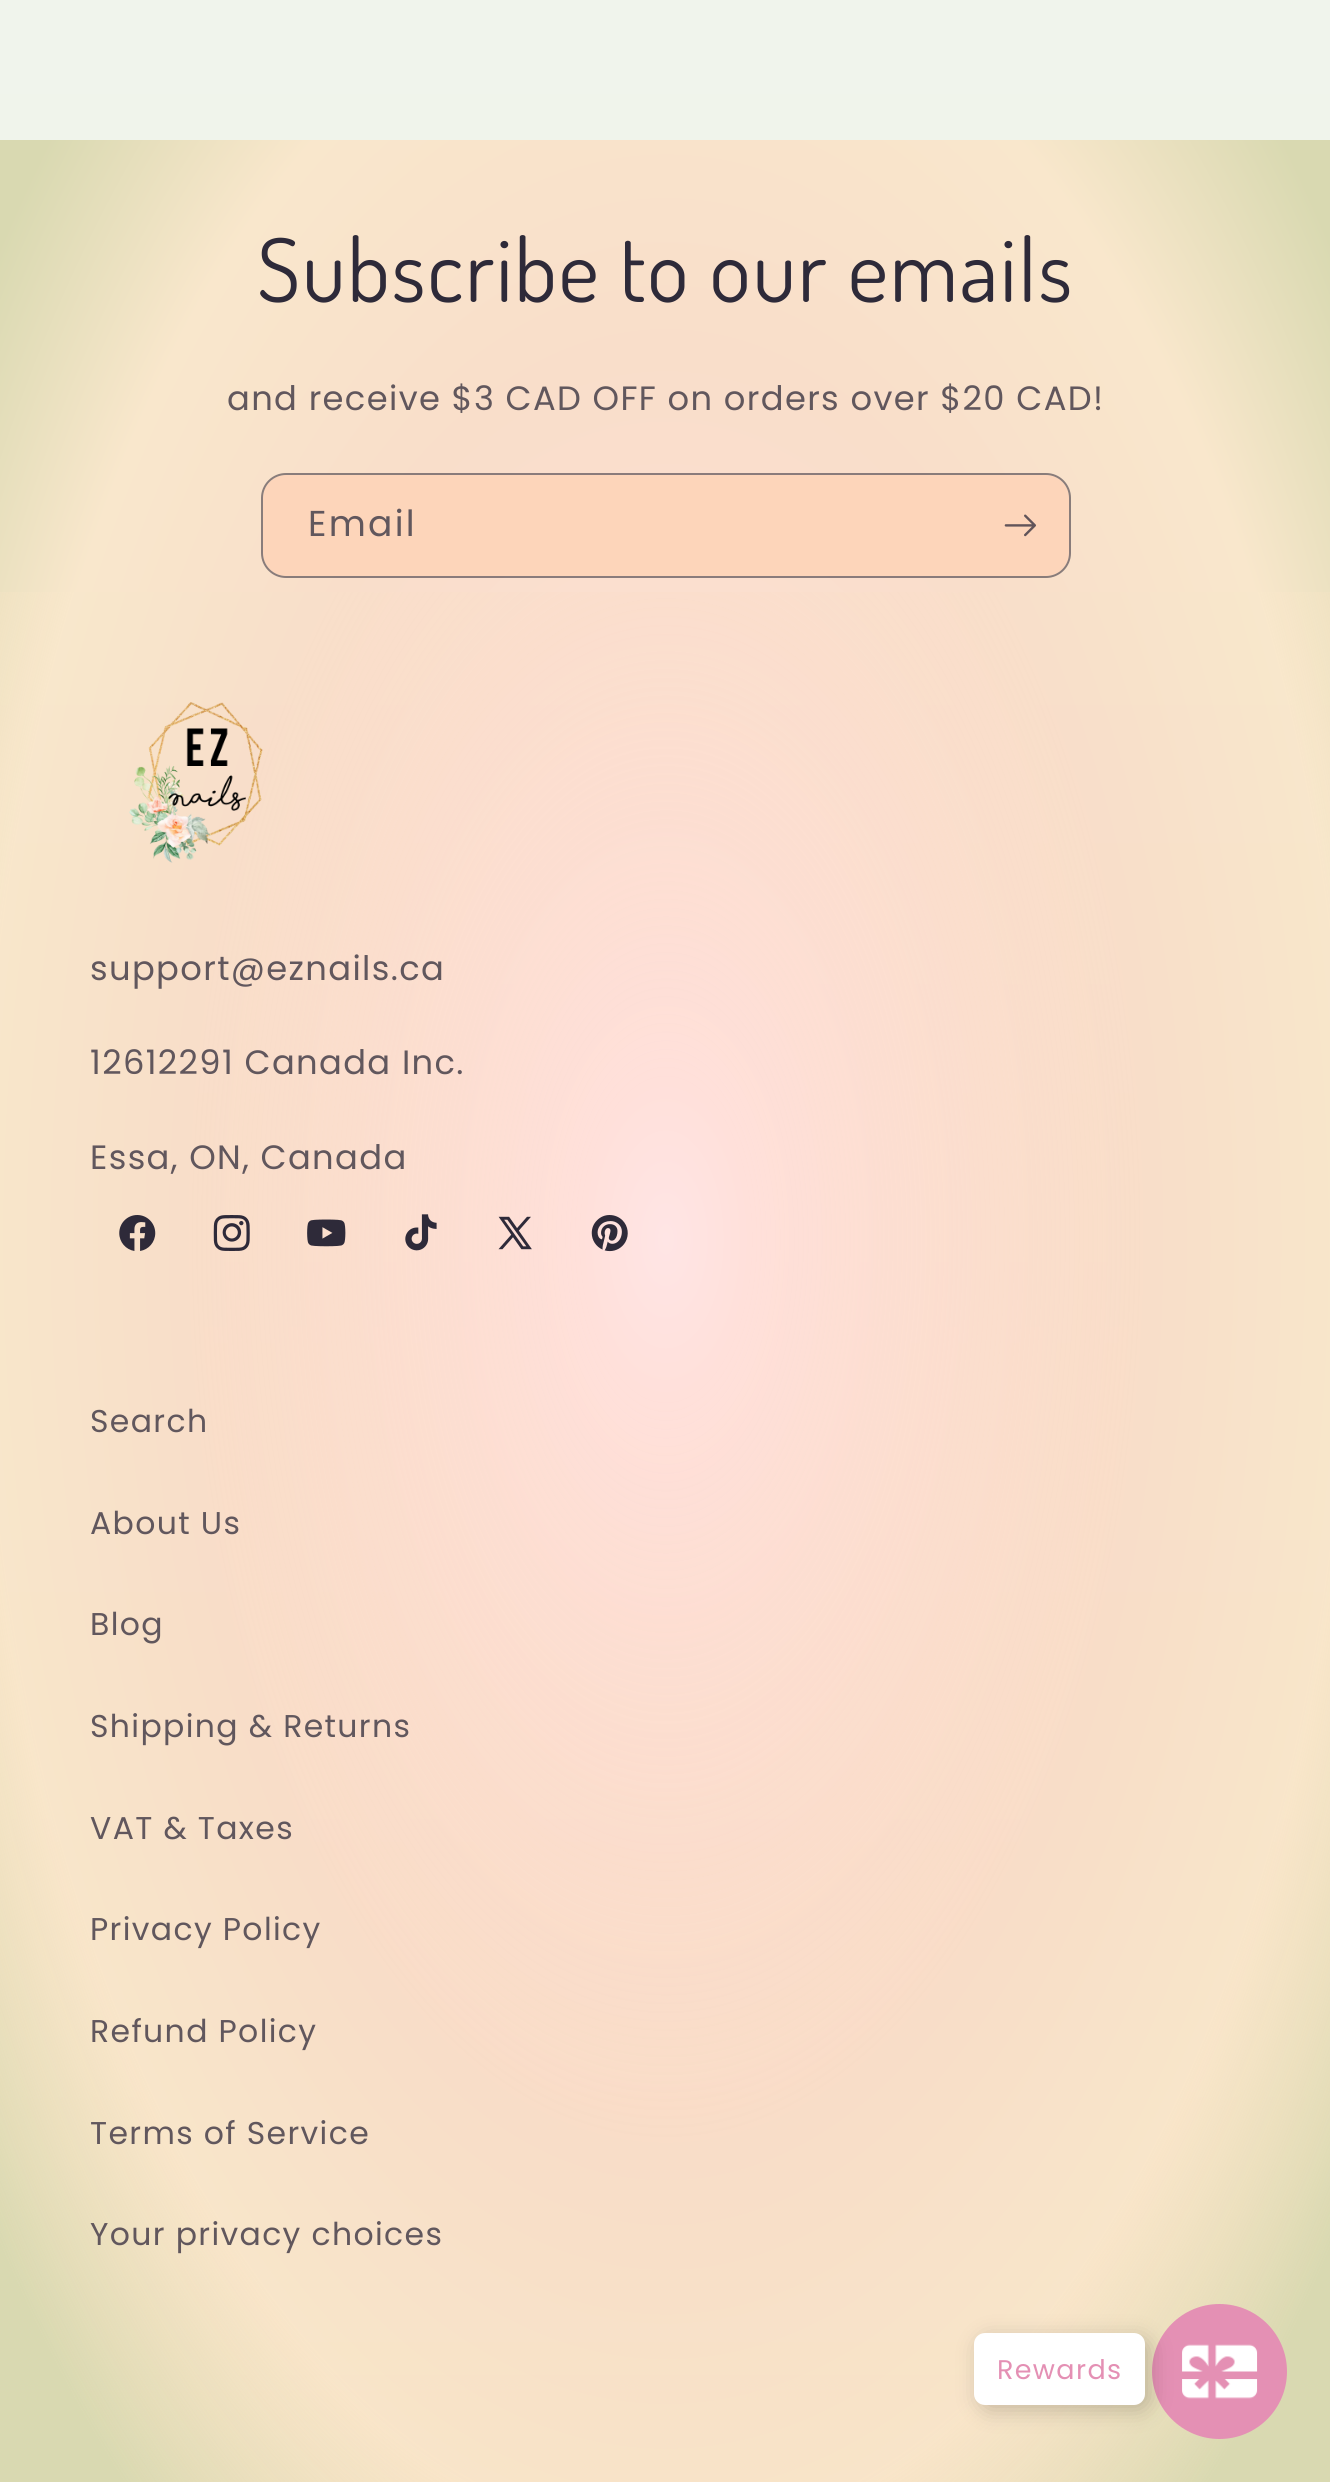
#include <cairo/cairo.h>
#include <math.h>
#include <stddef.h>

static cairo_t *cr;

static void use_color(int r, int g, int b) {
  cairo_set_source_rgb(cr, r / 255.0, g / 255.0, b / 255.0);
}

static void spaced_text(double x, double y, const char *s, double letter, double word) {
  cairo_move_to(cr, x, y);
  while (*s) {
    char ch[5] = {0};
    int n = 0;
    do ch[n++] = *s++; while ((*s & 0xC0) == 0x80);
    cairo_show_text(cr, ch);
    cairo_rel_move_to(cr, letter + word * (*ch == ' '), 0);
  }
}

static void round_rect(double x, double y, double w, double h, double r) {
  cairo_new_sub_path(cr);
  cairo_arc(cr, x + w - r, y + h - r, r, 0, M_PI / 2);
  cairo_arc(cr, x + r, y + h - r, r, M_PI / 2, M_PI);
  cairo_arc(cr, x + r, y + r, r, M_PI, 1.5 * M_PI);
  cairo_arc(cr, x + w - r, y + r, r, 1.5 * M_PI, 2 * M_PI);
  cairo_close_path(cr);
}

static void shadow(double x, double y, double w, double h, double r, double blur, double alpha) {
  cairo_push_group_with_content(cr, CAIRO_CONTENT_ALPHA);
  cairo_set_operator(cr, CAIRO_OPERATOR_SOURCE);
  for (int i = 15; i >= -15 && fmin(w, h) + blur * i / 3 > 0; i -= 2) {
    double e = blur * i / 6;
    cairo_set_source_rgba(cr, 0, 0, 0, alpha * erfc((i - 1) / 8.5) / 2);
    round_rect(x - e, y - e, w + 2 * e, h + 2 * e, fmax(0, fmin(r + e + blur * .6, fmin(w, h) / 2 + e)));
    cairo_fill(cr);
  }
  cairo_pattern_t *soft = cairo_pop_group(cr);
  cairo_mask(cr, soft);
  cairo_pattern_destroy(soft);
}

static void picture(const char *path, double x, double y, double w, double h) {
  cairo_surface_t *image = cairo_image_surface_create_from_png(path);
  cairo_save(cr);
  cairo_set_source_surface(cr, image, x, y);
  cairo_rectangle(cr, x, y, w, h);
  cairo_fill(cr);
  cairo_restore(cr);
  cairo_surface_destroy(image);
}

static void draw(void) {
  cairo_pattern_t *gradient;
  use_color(255, 255, 255);
  cairo_paint(cr);
  gradient = cairo_pattern_create_linear(666, 0, 666, 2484);
  cairo_pattern_add_color_stop_rgba(gradient, 0, 0.941, 0.957, 0.925, 1);
  cairo_pattern_add_color_stop_rgba(gradient, 1, 0.945, 0.922, 0.886, 1);
  cairo_set_source(cr, gradient);
  cairo_pattern_destroy(gradient);
  cairo_rectangle(cr, 0, 0, 1330, 2482);
  cairo_fill(cr);
  gradient = cairo_pattern_create_radial(0, 0, 0, 0, 0, 1);
  cairo_pattern_set_matrix(gradient, &(cairo_matrix_t){1.0 / 942, 0, 0, 1.0 / 1756, -1.0 * 666 / 942, -1.0 * 1242 / 1756});
  cairo_pattern_add_color_stop_rgba(gradient, 0, 1, 0.898, 0.898, 1);
  cairo_pattern_add_color_stop_rgba(gradient, 0.09, 1, 0.878, 0.855, 1);
  cairo_pattern_add_color_stop_rgba(gradient, 0.51, 0.976, 0.871, 0.792, 1);
  cairo_pattern_add_color_stop_rgba(gradient, 0.73, 0.976, 0.906, 0.8, 1);
  cairo_pattern_add_color_stop_rgba(gradient, 0.91, 0.851, 0.851, 0.694, 1);
  cairo_set_source(cr, gradient);
  cairo_pattern_destroy(gradient);
  cairo_rectangle(cr, 0, 140, 1330, 452);
  cairo_fill(cr);
  use_color(253, 213, 186);
  round_rect(263, 475, 806, 101, 23);
  cairo_fill(cr);
  round_rect(262, 474, 808, 103, 24);
  cairo_set_source_rgba(cr, 0.18, 0.165, 0.224, 0.55);
  cairo_stroke(cr);
  picture("img_01.png", 1004, 514, 32, 23);
  gradient = cairo_pattern_create_radial(0, 0, 0, 0, 0, 1);
  cairo_pattern_set_matrix(gradient, &(cairo_matrix_t){1.0 / 942, 0, 0, 1.0 / 1756, -1.0 * 666 / 942, -1.0 * 1242 / 1756});
  cairo_pattern_add_color_stop_rgba(gradient, 0, 1, 0.898, 0.898, 1);
  cairo_pattern_add_color_stop_rgba(gradient, 0.09, 1, 0.878, 0.855, 1);
  cairo_pattern_add_color_stop_rgba(gradient, 0.51, 0.992, 0.835, 0.729, 0.67);
  cairo_pattern_add_color_stop_rgba(gradient, 0.73, 0.992, 0.886, 0.741, 0.67);
  cairo_pattern_add_color_stop_rgba(gradient, 0.91, 0.851, 0.851, 0.694, 1);
  cairo_set_source(cr, gradient);
  cairo_pattern_destroy(gradient);
  cairo_rectangle(cr, 0, 592, 1330, 1890);
  cairo_fill(cr);
  picture("img_02.png", 129, 702, 134, 161);
  picture("img_03.png", 119, 1215, 37, 36);
  picture("img_04.png", 213, 1215, 37, 36);
  picture("img_05.png", 307, 1219, 39, 28);
  picture("img_06.png", 405, 1214, 32, 37);
  picture("img_07.png", 498, 1216, 34, 34);
  picture("img_08.png", 591, 1215, 37, 37);
  use_color(228, 144, 180);
  cairo_arc(cr, 1219.5, 2371.5, 67.5, 0, 2 * M_PI);
  cairo_fill(cr);
  picture("img_09.png", 1182, 2344, 76, 55);
  use_color(0, 0, 0);
  shadow(979, 2338, 171, 72, 11, 11, 0.2);
  use_color(255, 255, 255);
  round_rect(974, 2333, 171, 72, 11);
  cairo_fill(cr);
  cairo_select_font_face(cr, "Dosis", CAIRO_FONT_SLANT_NORMAL, CAIRO_FONT_WEIGHT_NORMAL);
  cairo_set_font_size(cr, 87.75);
  use_color(46, 42, 57);
  spaced_text(257, 302, "Subscribe to our emails", 1.75, 0);
  cairo_select_font_face(cr, "Poppins", CAIRO_FONT_SLANT_NORMAL, CAIRO_FONT_WEIGHT_NORMAL);
  cairo_set_font_size(cr, 33.75);
  use_color(97, 87, 93);
  spaced_text(227, 410, "and receive $3 CAD OFF on orders over $20 CAD!", 1.35, 0);
  cairo_set_font_size(cr, 36);
  spaced_text(308, 536, "Email", 2.25, 0);
  cairo_set_font_size(cr, 33.75);
  spaced_text(90, 980, "support@eznails.ca", 1.35, 0);
  spaced_text(90, 1074, "12612291 Canada Inc.", 1.35, 0);
  spaced_text(90, 1169, "Essa, ON, Canada", 1.35, 0);
  cairo_set_font_size(cr, 31.5);
  spaced_text(90, 1432, "Search", 1.35, 0);
  spaced_text(90, 1534, "About Us", 1.35, 0);
  spaced_text(90, 1635, "Blog", 1.35, 0);
  spaced_text(90, 1737, "Shipping & Returns", 1.35, 0);
  spaced_text(90, 1839, "VAT & Taxes", 1.35, 0);
  spaced_text(90, 1940, "Privacy Policy", 1.35, 0);
  spaced_text(90, 2042, "Refund Policy", 1.35, 0);
  spaced_text(90, 2144, "Terms of Service", 1.35, 0);
  spaced_text(90, 2245, "Your privacy choices", 1.35, 0);
  cairo_set_font_size(cr, 27);
  use_color(228, 144, 180);
  spaced_text(997, 2379, "Rewards", 1.35, 0);
}

int main(void) {
  cairo_surface_t *surface = cairo_image_surface_create(CAIRO_FORMAT_RGB24, 1330, 2482);
  cr = cairo_create(surface);
  cairo_font_options_t *options = cairo_font_options_create();
  cairo_font_options_set_hint_metrics(options, CAIRO_HINT_METRICS_OFF);
  cairo_font_options_set_hint_style(options, CAIRO_HINT_STYLE_NONE);
  cairo_set_font_options(cr, options);
  cairo_set_miter_limit(cr, 4);
  draw();
  cairo_surface_write_to_png(surface, "out.png");
  cairo_font_options_destroy(options);
  cairo_destroy(cr);
  cairo_surface_destroy(surface);
  return 0;
}
